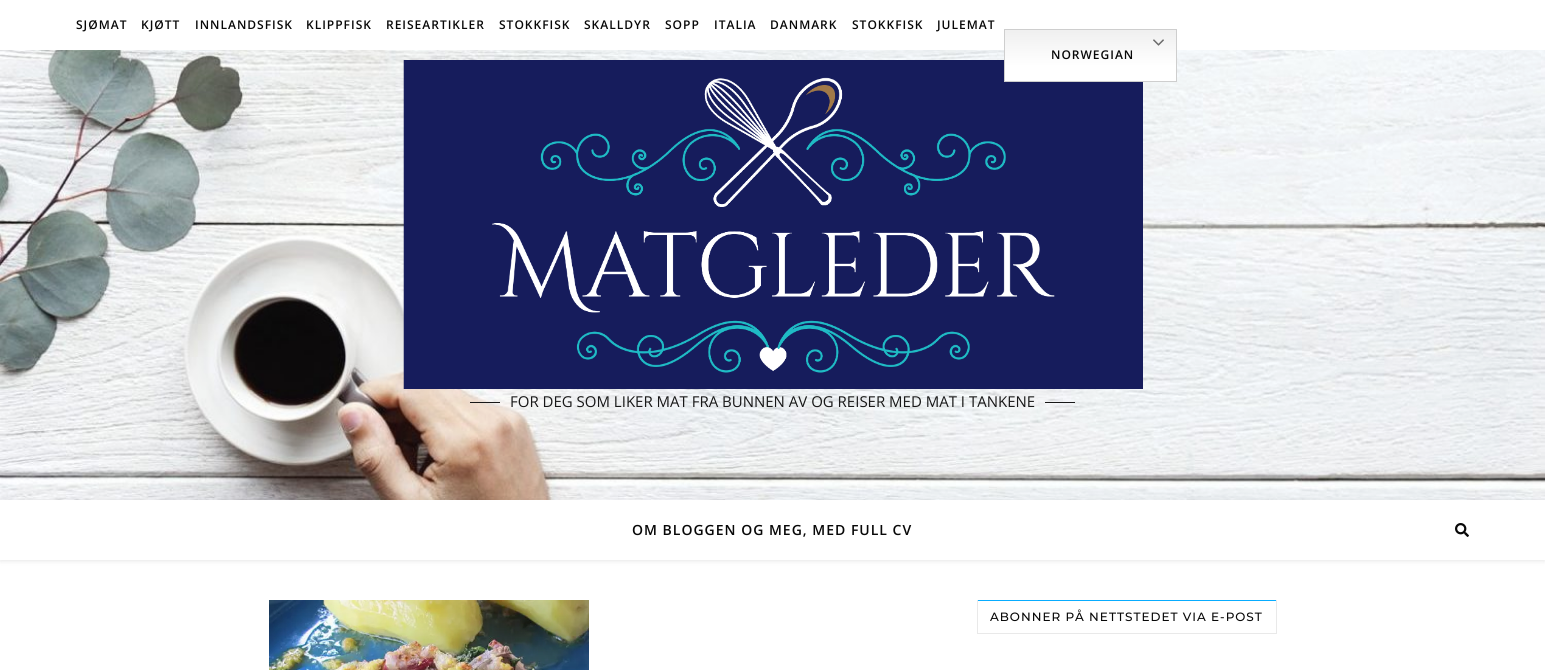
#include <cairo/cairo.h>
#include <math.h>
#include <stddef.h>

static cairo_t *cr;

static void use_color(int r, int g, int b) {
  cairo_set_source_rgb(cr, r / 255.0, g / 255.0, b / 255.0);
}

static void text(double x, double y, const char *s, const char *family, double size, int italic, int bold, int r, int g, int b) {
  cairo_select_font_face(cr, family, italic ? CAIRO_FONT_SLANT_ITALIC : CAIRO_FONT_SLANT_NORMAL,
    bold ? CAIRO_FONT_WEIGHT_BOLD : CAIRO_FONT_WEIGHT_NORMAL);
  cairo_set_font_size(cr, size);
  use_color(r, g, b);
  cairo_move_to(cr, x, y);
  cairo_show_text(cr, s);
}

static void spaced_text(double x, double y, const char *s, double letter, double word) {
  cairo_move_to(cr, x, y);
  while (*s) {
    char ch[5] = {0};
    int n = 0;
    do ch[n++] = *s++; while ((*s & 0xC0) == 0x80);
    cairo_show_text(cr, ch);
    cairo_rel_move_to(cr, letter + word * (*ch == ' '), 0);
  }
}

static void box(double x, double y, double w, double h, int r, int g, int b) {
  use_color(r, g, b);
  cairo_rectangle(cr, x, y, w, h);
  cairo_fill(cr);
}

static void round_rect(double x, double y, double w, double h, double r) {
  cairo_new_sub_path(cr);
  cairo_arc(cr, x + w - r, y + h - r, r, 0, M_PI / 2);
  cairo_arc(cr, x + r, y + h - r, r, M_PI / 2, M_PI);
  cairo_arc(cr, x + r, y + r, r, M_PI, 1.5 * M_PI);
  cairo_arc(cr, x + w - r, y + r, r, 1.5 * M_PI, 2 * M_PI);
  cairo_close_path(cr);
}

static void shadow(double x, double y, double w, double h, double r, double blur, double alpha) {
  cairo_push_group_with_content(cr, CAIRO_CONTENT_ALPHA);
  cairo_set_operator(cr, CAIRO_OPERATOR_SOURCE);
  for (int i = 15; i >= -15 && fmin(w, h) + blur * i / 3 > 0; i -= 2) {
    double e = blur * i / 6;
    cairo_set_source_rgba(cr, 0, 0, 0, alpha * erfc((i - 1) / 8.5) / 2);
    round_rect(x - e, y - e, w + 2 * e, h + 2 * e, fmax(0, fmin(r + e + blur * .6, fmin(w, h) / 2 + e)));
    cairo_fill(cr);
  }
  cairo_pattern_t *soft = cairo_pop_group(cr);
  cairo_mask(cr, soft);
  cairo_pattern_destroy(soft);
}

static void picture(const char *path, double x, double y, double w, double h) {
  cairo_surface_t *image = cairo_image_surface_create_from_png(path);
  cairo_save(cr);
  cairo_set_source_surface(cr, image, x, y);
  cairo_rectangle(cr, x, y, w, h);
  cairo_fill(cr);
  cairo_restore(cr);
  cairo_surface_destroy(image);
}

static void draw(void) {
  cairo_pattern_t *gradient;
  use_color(255, 255, 255);
  cairo_paint(cr);
  picture("img_02.png", 0, 50, 1545, 450);
  picture("img_03.png", 403, 60, 740, 329);
  gradient = cairo_pattern_create_linear(1091, 29, 1091, 82);
  cairo_pattern_add_color_stop_rgba(gradient, 0, 0.937, 0.937, 0.937, 1);
  cairo_pattern_add_color_stop_rgba(gradient, 0.7, 1, 1, 1, 1);
  cairo_set_source(cr, gradient);
  cairo_pattern_destroy(gradient);
  cairo_rectangle(cr, 1005, 30, 171, 51);
  cairo_fill(cr);
  cairo_rectangle(cr, 1004.5, 29.5, 172, 52);
  use_color(206, 206, 206);
  cairo_set_line_width(cr, 1);
  cairo_stroke(cr);
  picture("img_01.png", 1153, 39, 11, 7);
  box(470, 402, 30, 1, 24, 24, 24);
  box(1045, 402, 30, 1, 24, 24, 24);
  cairo_save(cr);
  cairo_set_fill_rule(cr, CAIRO_FILL_RULE_EVEN_ODD);
  cairo_new_path(cr);
  cairo_move_to(cr, 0, 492);
  cairo_line_to(cr, 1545, 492);
  cairo_line_to(cr, 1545, 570);
  cairo_line_to(cr, 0, 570);
  cairo_close_path(cr);
  cairo_move_to(cr, 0, 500);
  cairo_line_to(cr, 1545, 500);
  cairo_line_to(cr, 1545, 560);
  cairo_line_to(cr, 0, 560);
  cairo_close_path(cr);
  cairo_clip(cr);
  use_color(8, 8, 8);
  shadow(0, 501, 1545, 60, 0, 2.5, 0.1);
  cairo_restore(cr);
  picture("img_04.png", 1455, 523, 14, 14);
  picture("img_05.png", 269, 600, 320, 70);
  box(977, 600, 300, 1, 8, 172, 255);
  box(1276, 600, 1, 34, 233, 233, 233);
  box(977, 633, 300, 1, 233, 233, 233);
  box(977, 600, 1, 34, 233, 233, 233);
  cairo_select_font_face(cr, "Open Sans SemiBold", CAIRO_FONT_SLANT_NORMAL, CAIRO_FONT_WEIGHT_NORMAL);
  cairo_set_font_size(cr, 12);
  use_color(8, 8, 8);
  spaced_text(76, 29, "SJØMAT", 1, 0);
  spaced_text(141, 29, "KJØTT", 1, 0);
  spaced_text(195, 29, "INNLANDSFISK", 1, 0);
  spaced_text(306, 29, "KLIPPFISK", 1, 0);
  spaced_text(386, 29, "REISEARTIKLER", 1, 0);
  spaced_text(499, 29, "STOKKFISK", 1, 0);
  spaced_text(584, 29, "SKALLDYR", 1, 0);
  spaced_text(665, 29, "SOPP", 1, 0);
  spaced_text(714, 29, "ITALIA", 1, 0);
  spaced_text(770, 29, "DANMARK", 1, 0);
  spaced_text(852, 29, "STOKKFISK", 1, 0);
  spaced_text(937, 29, "JULEMAT", 1, 0);
  spaced_text(1051, 59, "NORWEGIAN", 1, 0);
  text(510, 407, "FOR DEG SOM LIKER MAT FRA BUNNEN AV OG REISER MED MAT I TANKENE", "Open Sans", 15, 0, 0, 24, 24, 24);
  cairo_select_font_face(cr, "Open Sans SemiBold", CAIRO_FONT_SLANT_NORMAL, CAIRO_FONT_WEIGHT_NORMAL);
  cairo_set_font_size(cr, 14);
  use_color(8, 8, 8);
  spaced_text(632, 535, "OM BLOGGEN OG MEG, MED FULL CV", 1, 0);
  cairo_select_font_face(cr, "Montserrat Medium", CAIRO_FONT_SLANT_NORMAL, CAIRO_FONT_WEIGHT_NORMAL);
  cairo_set_font_size(cr, 12);
  spaced_text(990, 621, "ABONNER PÅ NETTSTEDET VIA E-POST", 1, 0);
}

int main(void) {
  cairo_surface_t *surface = cairo_image_surface_create(CAIRO_FORMAT_RGB24, 1545, 670);
  cr = cairo_create(surface);
  cairo_font_options_t *options = cairo_font_options_create();
  cairo_font_options_set_hint_metrics(options, CAIRO_HINT_METRICS_OFF);
  cairo_font_options_set_hint_style(options, CAIRO_HINT_STYLE_NONE);
  cairo_set_font_options(cr, options);
  cairo_set_miter_limit(cr, 4);
  draw();
  cairo_surface_write_to_png(surface, "out.png");
  cairo_font_options_destroy(options);
  cairo_destroy(cr);
  cairo_surface_destroy(surface);
  return 0;
}
